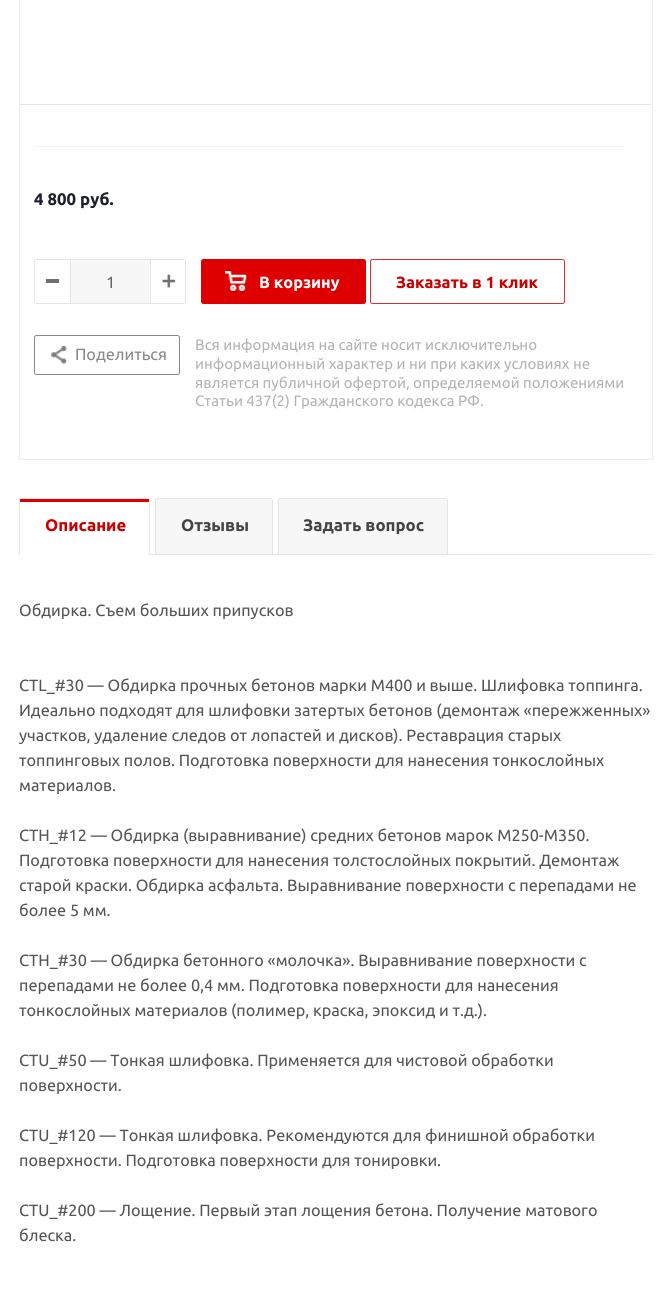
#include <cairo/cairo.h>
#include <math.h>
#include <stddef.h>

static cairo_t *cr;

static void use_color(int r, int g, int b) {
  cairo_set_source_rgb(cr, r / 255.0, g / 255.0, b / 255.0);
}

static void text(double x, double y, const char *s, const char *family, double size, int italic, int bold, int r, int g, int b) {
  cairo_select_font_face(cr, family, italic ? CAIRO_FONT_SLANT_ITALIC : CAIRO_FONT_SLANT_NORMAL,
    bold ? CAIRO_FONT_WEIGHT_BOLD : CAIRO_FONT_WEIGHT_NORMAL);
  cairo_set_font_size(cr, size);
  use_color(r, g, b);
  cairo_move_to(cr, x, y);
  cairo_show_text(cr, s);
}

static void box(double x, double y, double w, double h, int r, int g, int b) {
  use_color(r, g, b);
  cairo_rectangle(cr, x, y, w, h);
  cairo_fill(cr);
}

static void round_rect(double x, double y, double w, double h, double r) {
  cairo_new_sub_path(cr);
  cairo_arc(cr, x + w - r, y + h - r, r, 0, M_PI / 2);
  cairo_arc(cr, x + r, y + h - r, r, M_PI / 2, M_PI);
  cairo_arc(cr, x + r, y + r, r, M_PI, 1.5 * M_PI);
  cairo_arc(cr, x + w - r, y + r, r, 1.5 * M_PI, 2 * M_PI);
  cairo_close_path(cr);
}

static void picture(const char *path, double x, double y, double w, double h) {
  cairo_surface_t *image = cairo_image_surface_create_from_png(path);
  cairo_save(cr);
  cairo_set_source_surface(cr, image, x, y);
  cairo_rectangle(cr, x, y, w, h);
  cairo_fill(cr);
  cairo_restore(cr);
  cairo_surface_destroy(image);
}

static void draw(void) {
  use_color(255, 255, 255);
  cairo_paint(cr);
  cairo_rectangle(cr, 19.5, -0.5, 633, 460);
  use_color(234, 235, 236);
  cairo_set_line_width(cr, 1);
  cairo_stroke(cr);
  box(20, 104, 631, 1, 229, 229, 229);
  box(34, 146, 591, 1, 242, 242, 242);
  round_rect(34.5, 259.5, 151, 44, 2);
  use_color(229, 229, 229);
  cairo_stroke(cr);
  box(46, 279, 13, 4, 112, 112, 112);
  box(71, 260, 79, 43, 247, 247, 247);
  box(150, 260, 1, 43, 229, 229, 229);
  box(70, 260, 1, 43, 229, 229, 229);
  picture("img_01.png", 162, 274, 14, 14);
  use_color(222, 0, 0);
  round_rect(201, 259, 165, 45, 2.5);
  cairo_fill(cr);
  picture("img_02.png", 225, 271, 22, 20);
  round_rect(370.5, 259.5, 194, 44, 2);
  use_color(211, 52, 47);
  cairo_stroke(cr);
  round_rect(34.5, 335.5, 145, 39, 2);
  use_color(136, 136, 136);
  cairo_stroke(cr);
  picture("img_03.png", 51, 346, 16, 18);
  cairo_save(cr);
  cairo_rectangle(cr, 19, 485, 634, 70);
  cairo_clip(cr);
  cairo_new_path(cr);
  cairo_move_to(cr, 21.5, 498.5);
  cairo_line_to(cr, 147.5, 498.5);
  cairo_curve_to(cr, 148.5, 498.5, 149.5, 499.5, 149.5, 500.5);
  cairo_line_to(cr, 149.5, 555.5);
  cairo_line_to(cr, 19.5, 555.5);
  cairo_line_to(cr, 19.5, 500.5);
  cairo_curve_to(cr, 19.5, 499.5, 20.5, 498.5, 21.5, 498.5);
  cairo_close_path(cr);
  use_color(229, 229, 229);
  cairo_stroke(cr);
  cairo_restore(cr);
  box(20, 499, 129, 3, 222, 0, 0);
  use_color(247, 247, 247);
  cairo_new_path(cr);
  cairo_move_to(cr, 157.5, 498);
  cairo_line_to(cr, 270.5, 498);
  cairo_curve_to(cr, 272, 498, 273, 499, 273, 500.5);
  cairo_line_to(cr, 273, 555);
  cairo_line_to(cr, 155, 555);
  cairo_line_to(cr, 155, 500.5);
  cairo_curve_to(cr, 155, 499, 156, 498, 157.5, 498);
  cairo_close_path(cr);
  cairo_fill(cr);
  cairo_save(cr);
  cairo_rectangle(cr, 19, 485, 634, 70);
  cairo_clip(cr);
  cairo_new_path(cr);
  cairo_move_to(cr, 157.5, 498.5);
  cairo_line_to(cr, 270.5, 498.5);
  cairo_curve_to(cr, 271.5, 498.5, 272.5, 499.5, 272.5, 500.5);
  cairo_line_to(cr, 272.5, 555.5);
  cairo_line_to(cr, 155.5, 555.5);
  cairo_line_to(cr, 155.5, 500.5);
  cairo_curve_to(cr, 155.5, 499.5, 156.5, 498.5, 157.5, 498.5);
  cairo_close_path(cr);
  use_color(229, 229, 229);
  cairo_stroke(cr);
  cairo_restore(cr);
  cairo_new_path(cr);
  cairo_move_to(cr, 280.5, 498);
  cairo_line_to(cr, 445.5, 498);
  cairo_curve_to(cr, 447, 498, 448, 499, 448, 500.5);
  cairo_line_to(cr, 448, 555);
  cairo_line_to(cr, 278, 555);
  cairo_line_to(cr, 278, 500.5);
  cairo_curve_to(cr, 278, 499, 279, 498, 280.5, 498);
  cairo_close_path(cr);
  cairo_fill(cr);
  cairo_save(cr);
  cairo_rectangle(cr, 19, 485, 634, 70);
  cairo_clip(cr);
  cairo_new_path(cr);
  cairo_move_to(cr, 280.5, 498.5);
  cairo_line_to(cr, 445.5, 498.5);
  cairo_curve_to(cr, 446.5, 498.5, 447.5, 499.5, 447.5, 500.5);
  cairo_line_to(cr, 447.5, 555.5);
  cairo_line_to(cr, 278.5, 555.5);
  cairo_line_to(cr, 278.5, 500.5);
  cairo_curve_to(cr, 278.5, 499.5, 279.5, 498.5, 280.5, 498.5);
  cairo_close_path(cr);
  use_color(229, 229, 229);
  cairo_stroke(cr);
  cairo_restore(cr);
  box(150, 554, 503, 1, 229, 229, 229);
  text(34, 205, "4 800 руб.", "Ubuntu", 16.75, 0, 1, 29, 32, 41);
  text(106, 288, "1", "Ubuntu", 16.25, 0, 0, 102, 102, 102);
  text(259, 288, "В корзину", "Ubuntu", 16.25, 0, 1, 255, 255, 255);
  text(396, 288, "Заказать в 1 клик", "Ubuntu", 16.25, 0, 1, 202, 0, 0);
  text(75, 360, "Поделиться", "Ubuntu", 16.25, 0, 0, 136, 136, 136);
  text(195, 350, "Вся информация на сайте носит исключительно", "Ubuntu", 15, 0, 0, 179, 179, 179);
  text(195, 369, "информационный характер и ни при каких условиях не", "Ubuntu", 15, 0, 0, 179, 179, 179);
  text(195, 388, "является публичной офертой, определяемой положениями", "Ubuntu", 15, 0, 0, 179, 179, 179);
  text(195, 406, "Статьи 437(2) Гражданского кодекса РФ.", "Ubuntu", 15, 0, 0, 179, 179, 179);
  text(45, 531, "Описание", "Ubuntu", 16.75, 0, 1, 202, 0, 0);
  text(181, 531, "Отзывы", "Ubuntu", 16.75, 0, 1, 68, 68, 68);
  text(303, 531, "Задать вопрос", "Ubuntu", 16.75, 0, 1, 68, 68, 68);
  text(19, 616, "Обдирка. Съем больших припусков", "Ubuntu", 16.25, 0, 0, 85, 85, 85);
  text(19, 691, "CTL_#30 — Обдирка прочных бетонов марки М400 и выше. Шлифовка топпинга.", "Ubuntu", 16.25, 0, 0, 85, 85, 85);
  text(19, 716, "Идеально подходят для шлифовки затертых бетонов (демонтаж «пережженных»", "Ubuntu", 16.25, 0, 0, 85, 85, 85);
  text(19, 741, "участков, удаление следов от лопастей и дисков). Реставрация старых", "Ubuntu", 16.25, 0, 0, 85, 85, 85);
  text(19, 766, "топпинговых полов. Подготовка поверхности для нанесения тонкослойных", "Ubuntu", 16.25, 0, 0, 85, 85, 85);
  text(19, 791, "материалов.", "Ubuntu", 16.25, 0, 0, 85, 85, 85);
  text(19, 841, "CTH_#12 — Обдирка (выравнивание) средних бетонов марок М250-М350.", "Ubuntu", 16.25, 0, 0, 85, 85, 85);
  text(19, 866, "Подготовка поверхности для нанесения толстослойных покрытий. Демонтаж", "Ubuntu", 16.25, 0, 0, 85, 85, 85);
  text(19, 891, "старой краски. Обдирка асфальта. Выравнивание поверхности с перепадами не", "Ubuntu", 16.25, 0, 0, 85, 85, 85);
  text(19, 916, "более 5 мм.", "Ubuntu", 16.25, 0, 0, 85, 85, 85);
  text(19, 966, "CTH_#30 — Обдирка бетонного «молочка». Выравнивание поверхности с", "Ubuntu", 16.25, 0, 0, 85, 85, 85);
  text(19, 991, "перепадами не более 0,4 мм. Подготовка поверхности для нанесения", "Ubuntu", 16.25, 0, 0, 85, 85, 85);
  text(19, 1016, "тонкослойных материалов (полимер, краска, эпоксид и т.д.).", "Ubuntu", 16.25, 0, 0, 85, 85, 85);
  text(19, 1066, "CTU_#50 — Тонкая шлифовка. Применяется для чистовой обработки", "Ubuntu", 16.25, 0, 0, 85, 85, 85);
  text(19, 1091, "поверхности.", "Ubuntu", 16.25, 0, 0, 85, 85, 85);
  text(19, 1141, "CTU_#120 — Тонкая шлифовка. Рекомендуются для финишной обработки", "Ubuntu", 16.25, 0, 0, 85, 85, 85);
  text(19, 1166, "поверхности. Подготовка поверхности для тонировки.", "Ubuntu", 16.25, 0, 0, 85, 85, 85);
  text(19, 1216, "CTU_#200 — Лощение. Первый этап лощения бетона. Получение матового", "Ubuntu", 16.25, 0, 0, 85, 85, 85);
  text(19, 1241, "блеска.", "Ubuntu", 16.25, 0, 0, 85, 85, 85);
}

int main(void) {
  cairo_surface_t *surface = cairo_image_surface_create(CAIRO_FORMAT_RGB24, 671, 1316);
  cr = cairo_create(surface);
  cairo_font_options_t *options = cairo_font_options_create();
  cairo_font_options_set_hint_metrics(options, CAIRO_HINT_METRICS_OFF);
  cairo_font_options_set_hint_style(options, CAIRO_HINT_STYLE_NONE);
  cairo_set_font_options(cr, options);
  cairo_set_miter_limit(cr, 4);
  draw();
  cairo_surface_write_to_png(surface, "out.png");
  cairo_font_options_destroy(options);
  cairo_destroy(cr);
  cairo_surface_destroy(surface);
  return 0;
}
